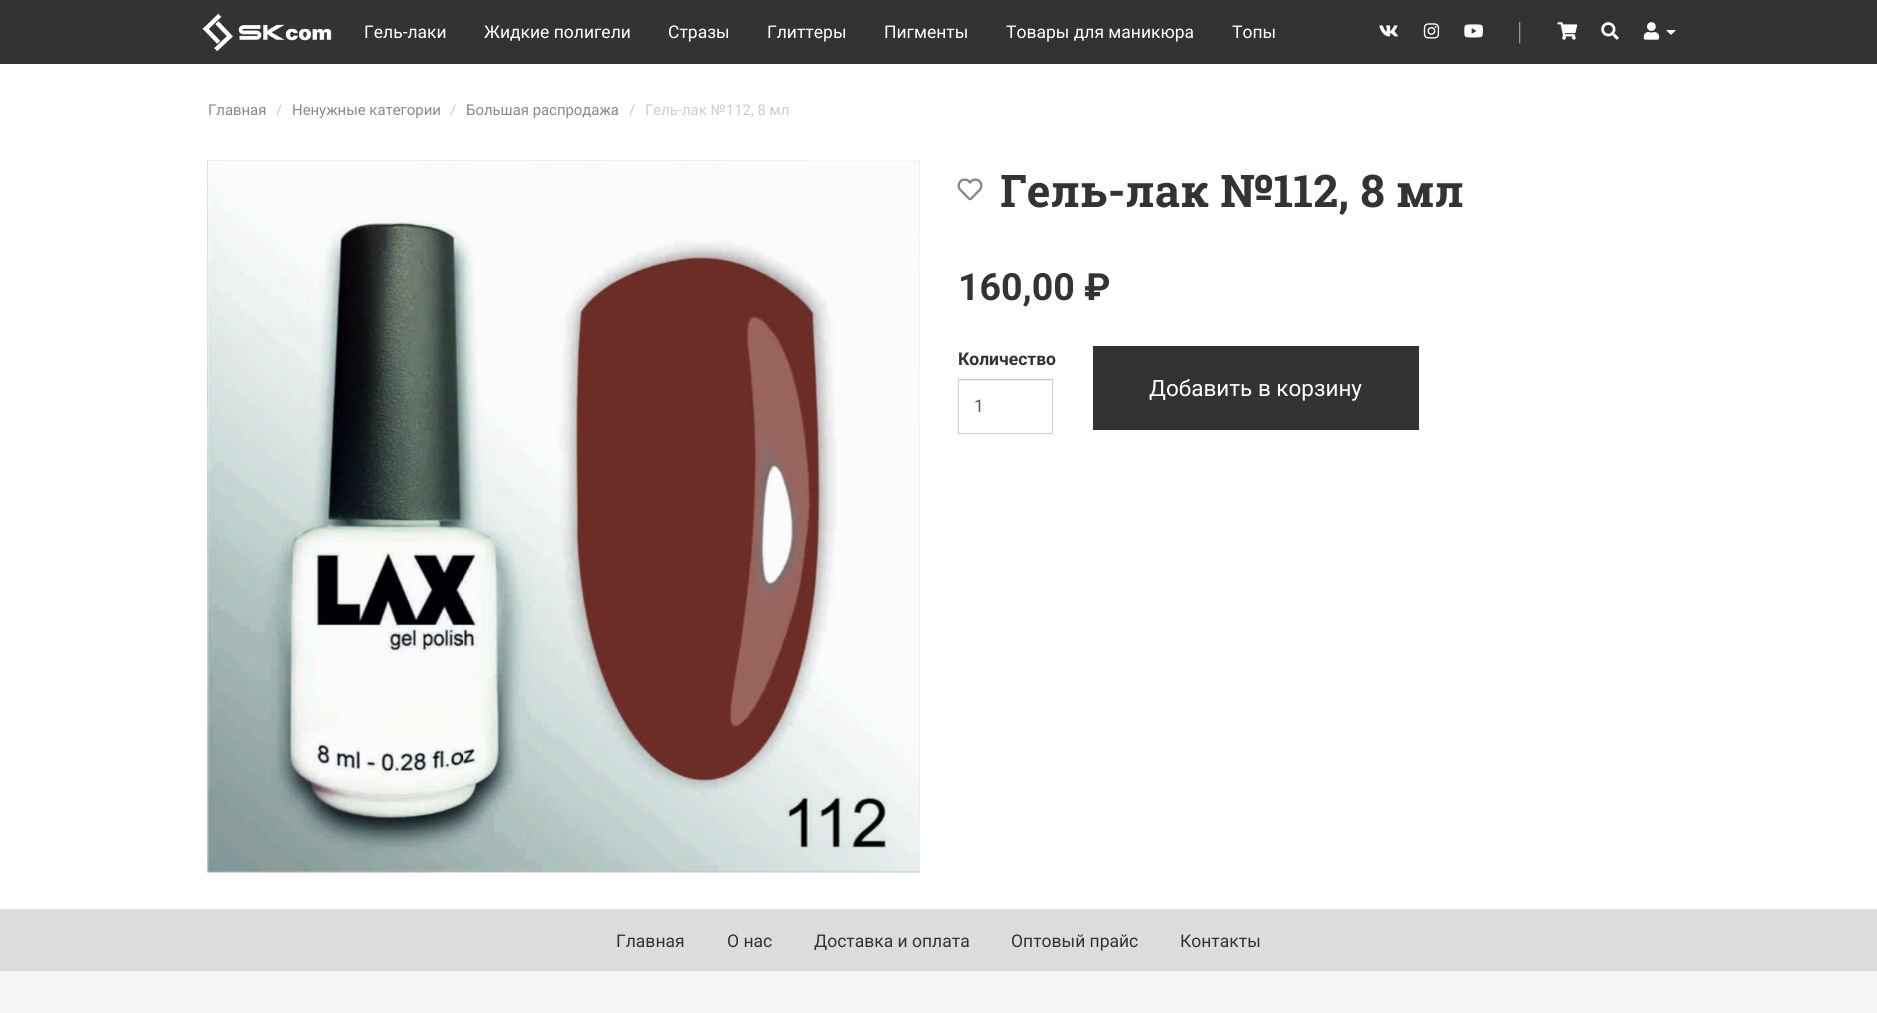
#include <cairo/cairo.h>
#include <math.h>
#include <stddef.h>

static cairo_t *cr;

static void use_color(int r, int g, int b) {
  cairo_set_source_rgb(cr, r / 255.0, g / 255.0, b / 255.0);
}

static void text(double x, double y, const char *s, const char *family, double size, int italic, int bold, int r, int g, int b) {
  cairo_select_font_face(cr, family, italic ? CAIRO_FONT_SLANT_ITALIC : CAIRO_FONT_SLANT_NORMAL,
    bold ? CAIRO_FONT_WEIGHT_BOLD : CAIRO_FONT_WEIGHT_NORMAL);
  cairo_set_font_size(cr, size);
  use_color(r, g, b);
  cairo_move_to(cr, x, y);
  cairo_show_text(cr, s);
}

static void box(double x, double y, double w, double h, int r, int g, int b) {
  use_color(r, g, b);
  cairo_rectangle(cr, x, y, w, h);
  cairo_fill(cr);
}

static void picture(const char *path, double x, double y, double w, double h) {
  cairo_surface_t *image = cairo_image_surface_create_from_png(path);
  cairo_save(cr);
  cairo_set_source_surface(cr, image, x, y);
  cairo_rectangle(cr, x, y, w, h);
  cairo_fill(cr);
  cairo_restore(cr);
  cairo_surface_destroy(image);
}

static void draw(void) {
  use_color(255, 255, 255);
  cairo_paint(cr);
  box(0, 0, 1877, 64, 51, 51, 51);
  picture("img_01.png", 202, 13, 130, 39);
  picture("img_02.png", 1379, 25, 19, 12);
  picture("img_03.png", 1423, 23, 17, 16);
  picture("img_04.png", 1464, 24, 19, 14);
  picture("img_05.png", 1557, 22, 21, 18);
  picture("img_06.png", 1601, 22, 18, 18);
  picture("img_07.png", 1643, 22, 17, 18);
  use_color(255, 255, 255);
  cairo_new_path(cr);
  cairo_move_to(cr, 1666, 30);
  cairo_line_to(cr, 1676, 30);
  cairo_line_to(cr, 1671, 35);
  cairo_close_path(cr);
  cairo_fill(cr);
  picture("img_09.png", 207, 171, 1, 701);
  picture("img_08.png", 207, 160, 713, 713);
  picture("img_10.png", 208, 160, 712, 712);
  picture("img_11.png", 957, 178, 26, 23);
  box(959, 380, 92, 1, 236, 236, 236);
  cairo_rectangle(cr, 958.5, 379.5, 94, 54);
  use_color(204, 204, 204);
  cairo_set_line_width(cr, 1);
  cairo_stroke(cr);
  box(1093, 346, 326, 84, 51, 51, 51);
  box(0, 909, 1877, 62, 220, 220, 220);
  box(0, 971, 1877, 42, 245, 245, 245);
  text(364, 38, "Гель-лаки", "Roboto", 17.5, 0, 0, 255, 255, 255);
  text(484, 38, "Жидкие полигели", "Roboto", 17.5, 0, 0, 255, 255, 255);
  text(668, 38, "Стразы", "Roboto", 17.5, 0, 0, 255, 255, 255);
  text(767, 38, "Глиттеры", "Roboto", 17.5, 0, 0, 255, 255, 255);
  text(884, 38, "Пигменты", "Roboto", 17.5, 0, 0, 255, 255, 255);
  text(1006, 38, "Товары для маникюра", "Roboto", 17.5, 0, 0, 255, 255, 255);
  text(1232, 38, "Топы", "Roboto", 17.5, 0, 0, 255, 255, 255);
  text(1515, 38, "│", "Liberation Sans", 17.5, 0, 0, 157, 157, 157);
  text(208, 115, "Главная", "Roboto", 14.9, 0, 0, 136, 136, 136);
  text(276, 115, "/", "Roboto", 14.9, 0, 0, 204, 204, 204);
  text(292, 115, "Ненужные категории", "Roboto", 14.9, 0, 0, 136, 136, 136);
  text(450, 115, "/", "Roboto", 14.9, 0, 0, 204, 204, 204);
  text(466, 115, "Большая распродажа", "Roboto", 14.9, 0, 0, 136, 136, 136);
  text(629, 115, "/", "Roboto", 14.9, 0, 0, 204, 204, 204);
  text(645, 115, "Гель-лак №112, 8 мл", "Roboto", 14.9, 0, 0, 204, 204, 204);
  text(1000, 207, "Гель-лак №112, 8 мл", "Roboto Slab", 45, 0, 1, 51, 51, 51);
  text(958, 300, "160,00 ₽", "Roboto", 37.5, 0, 1, 51, 51, 51);
  text(958, 365, "Количество", "Roboto", 17.5, 0, 1, 51, 51, 51);
  text(974, 412, "1", "Roboto", 17.5, 0, 0, 85, 85, 85);
  text(1149, 396, "Добавить в корзину", "Roboto", 22.5, 0, 0, 255, 255, 255);
  text(616, 947, "Главная", "Roboto", 17.5, 0, 0, 51, 51, 51);
  text(727, 947, "О нас", "Roboto", 17.5, 0, 0, 51, 51, 51);
  text(814, 947, "Доставка и оплата", "Roboto", 17.5, 0, 0, 51, 51, 51);
  text(1011, 947, "Оптовый прайс", "Roboto", 17.5, 0, 0, 51, 51, 51);
  text(1180, 947, "Контакты", "Roboto", 17.5, 0, 0, 51, 51, 51);
}

int main(void) {
  cairo_surface_t *surface = cairo_image_surface_create(CAIRO_FORMAT_RGB24, 1877, 1013);
  cr = cairo_create(surface);
  cairo_font_options_t *options = cairo_font_options_create();
  cairo_font_options_set_hint_metrics(options, CAIRO_HINT_METRICS_OFF);
  cairo_font_options_set_hint_style(options, CAIRO_HINT_STYLE_NONE);
  cairo_set_font_options(cr, options);
  cairo_set_miter_limit(cr, 4);
  draw();
  cairo_surface_write_to_png(surface, "out.png");
  cairo_font_options_destroy(options);
  cairo_destroy(cr);
  cairo_surface_destroy(surface);
  return 0;
}
